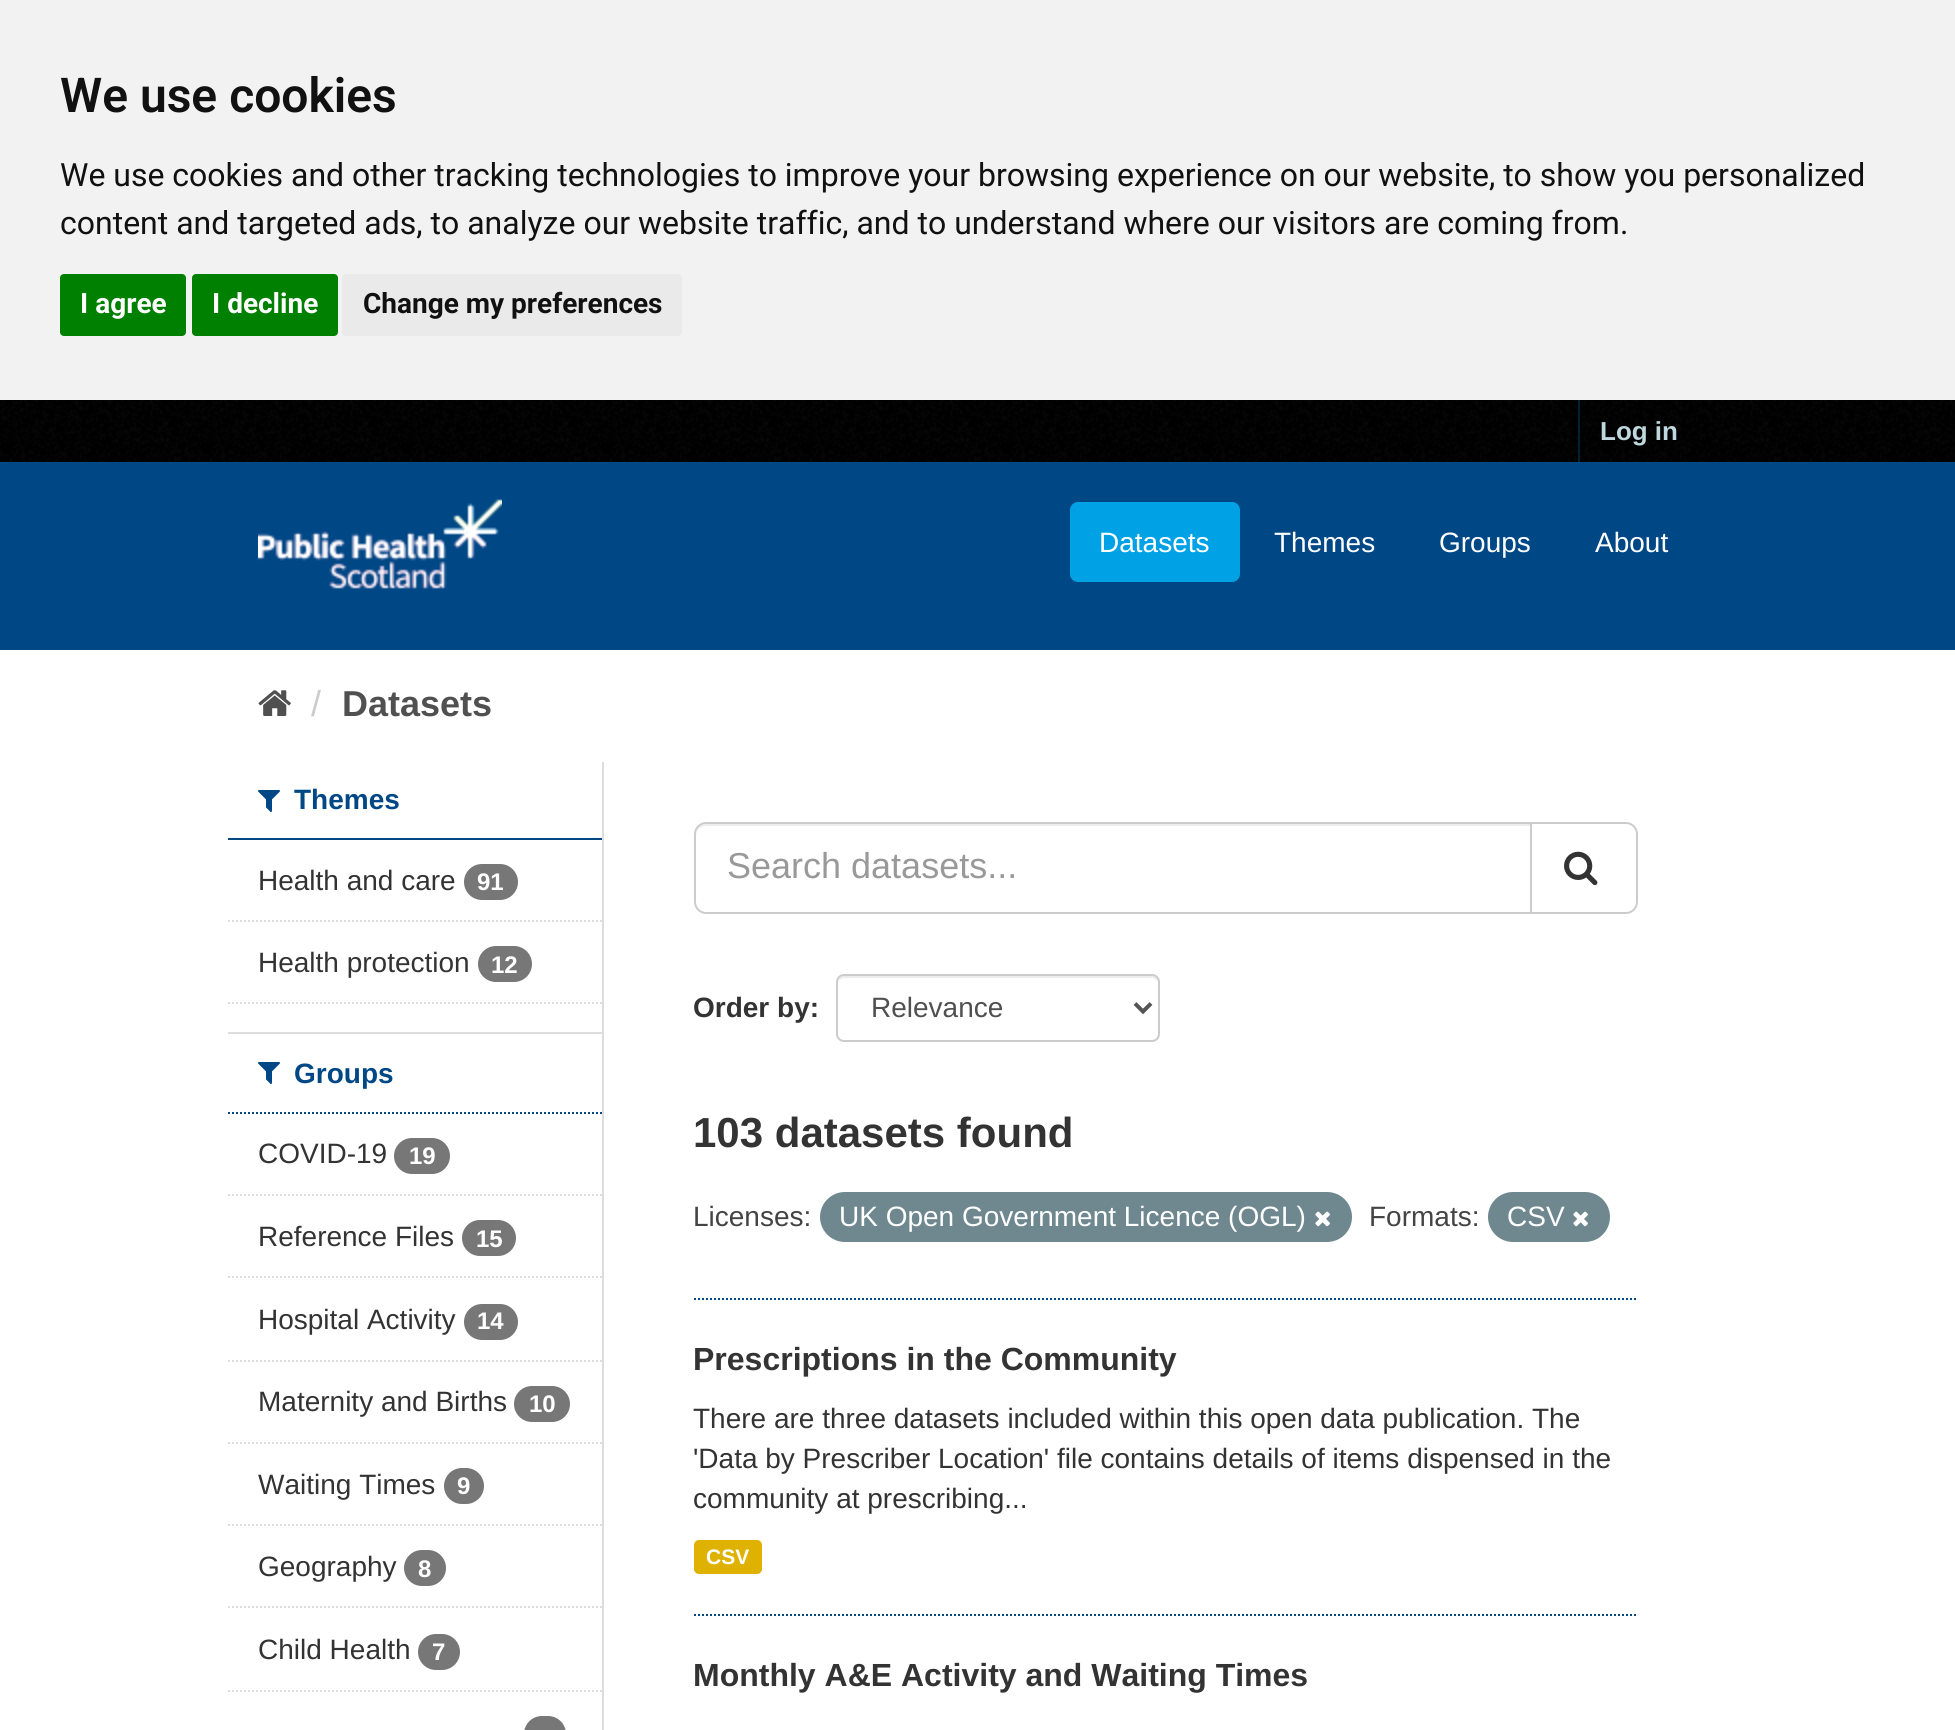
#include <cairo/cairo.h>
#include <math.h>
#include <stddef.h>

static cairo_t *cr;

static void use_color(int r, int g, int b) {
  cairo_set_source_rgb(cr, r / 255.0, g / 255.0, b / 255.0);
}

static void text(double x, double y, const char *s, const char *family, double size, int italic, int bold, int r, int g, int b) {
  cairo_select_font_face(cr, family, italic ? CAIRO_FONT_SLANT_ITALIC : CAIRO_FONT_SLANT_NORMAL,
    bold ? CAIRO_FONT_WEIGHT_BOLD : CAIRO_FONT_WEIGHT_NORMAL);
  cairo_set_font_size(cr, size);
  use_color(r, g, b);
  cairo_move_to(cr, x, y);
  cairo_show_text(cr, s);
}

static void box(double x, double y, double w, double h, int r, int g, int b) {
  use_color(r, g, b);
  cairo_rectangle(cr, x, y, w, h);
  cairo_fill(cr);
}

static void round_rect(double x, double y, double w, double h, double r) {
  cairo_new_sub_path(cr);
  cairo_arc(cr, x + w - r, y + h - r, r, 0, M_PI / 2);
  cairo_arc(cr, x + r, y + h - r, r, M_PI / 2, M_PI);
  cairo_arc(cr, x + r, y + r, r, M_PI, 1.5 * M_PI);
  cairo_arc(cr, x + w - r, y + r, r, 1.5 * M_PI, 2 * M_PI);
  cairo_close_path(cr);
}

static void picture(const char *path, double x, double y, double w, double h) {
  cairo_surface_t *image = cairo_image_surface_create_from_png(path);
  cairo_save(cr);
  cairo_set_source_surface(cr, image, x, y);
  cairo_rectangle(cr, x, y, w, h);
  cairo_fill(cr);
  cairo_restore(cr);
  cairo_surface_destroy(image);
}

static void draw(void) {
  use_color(0, 0, 0);
  cairo_paint(cr);
  box(0, 0, 1955, 400, 242, 242, 242);
  use_color(0, 128, 0);
  round_rect(60, 274, 126, 62, 4);
  cairo_fill(cr);
  round_rect(192, 274, 146, 62, 4);
  cairo_fill(cr);
  use_color(234, 234, 234);
  round_rect(342, 274, 340, 62, 4);
  cairo_fill(cr);
  picture("img_01.png", 0, 400, 1955, 62);
  box(1578, 400, 2, 62, 0, 35, 46);
  box(0, 462, 1955, 188, 0, 71, 133);
  picture("img_02.png", 258, 499, 244, 90);
  use_color(0, 162, 229);
  round_rect(1070, 502, 170, 80, 8);
  cairo_fill(cr);
  box(0, 650, 1955, 1080, 255, 255, 255);
  picture("img_03.png", 258, 690, 33, 26);
  box(228, 838, 374, 2, 0, 71, 133);
  picture("img_04.png", 258, 790, 22, 22);
  cairo_new_path(cr);
  cairo_move_to(cr, 228, 921);
  cairo_line_to(cr, 602, 921);
  use_color(221, 221, 221);
  cairo_set_dash(cr, (double[]){2, 2}, 2, 0);
  cairo_stroke(cr);
  use_color(119, 119, 119);
  round_rect(464, 864, 54, 36, 18);
  cairo_fill(cr);
  round_rect(478, 946, 54, 36, 18);
  cairo_fill(cr);
  cairo_new_path(cr);
  cairo_move_to(cr, 228, 1003);
  cairo_line_to(cr, 602, 1003);
  use_color(221, 221, 221);
  cairo_stroke(cr);
  box(228, 1032, 374, 2, 221, 221, 221);
  cairo_new_path(cr);
  cairo_move_to(cr, 228, 1113);
  cairo_line_to(cr, 602, 1113);
  use_color(0, 71, 133);
  cairo_stroke(cr);
  picture("img_04.png", 258, 1062, 22, 22);
  cairo_new_path(cr);
  cairo_move_to(cr, 228, 1195);
  cairo_line_to(cr, 602, 1195);
  use_color(221, 221, 221);
  cairo_stroke(cr);
  use_color(119, 119, 119);
  round_rect(394, 1138, 56, 36, 18);
  cairo_fill(cr);
  cairo_new_path(cr);
  cairo_move_to(cr, 228, 1277);
  cairo_line_to(cr, 602, 1277);
  use_color(221, 221, 221);
  cairo_stroke(cr);
  use_color(119, 119, 119);
  round_rect(462, 1220, 54, 36, 18);
  cairo_fill(cr);
  cairo_new_path(cr);
  cairo_move_to(cr, 228, 1361);
  cairo_line_to(cr, 602, 1361);
  use_color(221, 221, 221);
  cairo_stroke(cr);
  use_color(119, 119, 119);
  round_rect(464, 1304, 54, 36, 18);
  cairo_fill(cr);
  cairo_new_path(cr);
  cairo_move_to(cr, 228, 1443);
  cairo_line_to(cr, 602, 1443);
  use_color(221, 221, 221);
  cairo_stroke(cr);
  use_color(119, 119, 119);
  round_rect(514, 1386, 56, 36, 18);
  cairo_fill(cr);
  cairo_new_path(cr);
  cairo_move_to(cr, 228, 1525);
  cairo_line_to(cr, 602, 1525);
  use_color(221, 221, 221);
  cairo_stroke(cr);
  use_color(119, 119, 119);
  round_rect(444, 1468, 40, 36, 18);
  cairo_fill(cr);
  cairo_new_path(cr);
  cairo_move_to(cr, 228, 1607);
  cairo_line_to(cr, 602, 1607);
  use_color(221, 221, 221);
  cairo_stroke(cr);
  use_color(119, 119, 119);
  round_rect(404, 1550, 42, 36, 18);
  cairo_fill(cr);
  cairo_new_path(cr);
  cairo_move_to(cr, 228, 1691);
  cairo_line_to(cr, 602, 1691);
  use_color(221, 221, 221);
  cairo_stroke(cr);
  use_color(119, 119, 119);
  round_rect(418, 1634, 42, 36, 18);
  cairo_fill(cr);
  round_rect(524, 1716, 42, 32, 18);
  cairo_fill(cr);
  box(602, 762, 2, 968, 221, 221, 221);
  cairo_new_path(cr);
  cairo_move_to(cr, 694, 1299);
  cairo_line_to(cr, 1638, 1299);
  use_color(0, 71, 133);
  cairo_stroke(cr);
  use_color(236, 236, 236);
  cairo_new_path(cr);
  cairo_move_to(cr, 706, 826);
  cairo_line_to(cr, 1530, 826);
  cairo_line_to(cr, 1530, 824);
  cairo_line_to(cr, 706, 824);
  cairo_curve_to(cr, 699, 824, 696, 830, 696, 836);
  cairo_curve_to(cr, 696, 830, 700, 826, 706, 826);
  cairo_close_path(cr);
  cairo_fill(cr);
  cairo_new_path(cr);
  cairo_move_to(cr, 706, 823);
  cairo_line_to(cr, 1531, 823);
  cairo_line_to(cr, 1531, 913);
  cairo_line_to(cr, 706, 913);
  cairo_curve_to(cr, 700, 913, 695, 908, 695, 902);
  cairo_line_to(cr, 695, 834);
  cairo_curve_to(cr, 695, 828, 700, 823, 706, 823);
  cairo_close_path(cr);
  use_color(204, 204, 204);
  cairo_set_dash(cr, NULL, 0, 0);
  cairo_stroke(cr);
  use_color(255, 255, 255);
  cairo_new_path(cr);
  cairo_move_to(cr, 1531, 823);
  cairo_line_to(cr, 1626, 823);
  cairo_curve_to(cr, 1632, 823, 1637, 828, 1637, 834);
  cairo_line_to(cr, 1637, 902);
  cairo_curve_to(cr, 1637, 908, 1632, 913, 1626, 913);
  cairo_line_to(cr, 1531, 913);
  cairo_close_path(cr);
  cairo_fill_preserve(cr);
  use_color(204, 204, 204);
  cairo_stroke(cr);
  picture("img_05.png", 1564, 851, 34, 35);
  use_color(236, 236, 236);
  cairo_new_path(cr);
  cairo_move_to(cr, 844, 978);
  cairo_line_to(cr, 1152, 978);
  cairo_curve_to(cr, 1155, 978, 1158, 981, 1158, 984);
  cairo_curve_to(cr, 1158, 980, 1157, 976, 1152, 976);
  cairo_line_to(cr, 843, 976);
  cairo_curve_to(cr, 839, 977, 838, 981, 838, 984);
  cairo_curve_to(cr, 838, 981, 841, 978, 844, 978);
  cairo_close_path(cr);
  cairo_fill(cr);
  round_rect(837, 975, 322, 66, 7);
  use_color(204, 204, 204);
  cairo_stroke(cr);
  cairo_new_path(cr);
  cairo_move_to(cr, 1135, 1003.5);
  cairo_line_to(cr, 1143, 1011.5);
  cairo_line_to(cr, 1151, 1003.5);
  use_color(85, 85, 85);
  cairo_set_line_width(cr, 4);
  cairo_stroke(cr);
  use_color(111, 136, 144);
  round_rect(820, 1192, 532, 50, 25);
  cairo_fill(cr);
  picture("img_06.png", 1315, 1211, 15, 16);
  round_rect(1488, 1192, 122, 50, 25);
  cairo_fill(cr);
  picture("img_06.png", 1573, 1211, 15, 16);
  cairo_new_path(cr);
  cairo_move_to(cr, 694, 1615);
  cairo_line_to(cr, 1638, 1615);
  use_color(0, 71, 133);
  cairo_set_line_width(cr, 2);
  cairo_set_dash(cr, (double[]){2, 2}, 2, 0);
  cairo_stroke(cr);
  use_color(223, 177, 0);
  round_rect(694, 1540, 68, 34, 5);
  cairo_fill(cr);
  text(60, 112, "We use cookies", "Roboto SemiBold", 48, 0, 0, 17, 17, 17);
  text(60, 186, "We use cookies and other tracking technologies to improve your browsing experience on our website, to show you personalized", "Roboto", 32, 0, 0, 17, 17, 17);
  text(60, 234, "content and targeted ads, to analyze our website traffic, and to understand where our visitors are coming from.", "Roboto", 32, 0, 0, 17, 17, 17);
  text(80, 313, "I agree", "Roboto", 28, 0, 1, 255, 255, 255);
  text(212, 313, "I decline", "Roboto", 28, 0, 1, 255, 255, 255);
  text(363, 313, "Change my preferences", "Roboto", 28, 0, 1, 17, 17, 17);
  text(1600, 440, "Log in", "Liberation Sans", 26, 0, 1, 191, 215, 222);
  text(1099, 552, "Datasets", "Liberation Sans", 28, 0, 0, 255, 255, 255);
  text(1274, 552, "Themes", "Liberation Sans", 28, 0, 0, 255, 255, 255);
  text(1439, 552, "Groups", "Liberation Sans", 28, 0, 0, 255, 255, 255);
  text(1595, 552, "About", "Liberation Sans", 28, 0, 0, 255, 255, 255);
  text(311, 716, "/", "Liberation Sans", 36, 0, 0, 204, 204, 204);
  text(342, 716, "Datasets", "Liberation Sans", 36, 0, 1, 80, 80, 80);
  text(294, 809, "Themes", "Liberation Sans", 28, 0, 1, 0, 71, 133);
  text(258, 890, "Health and care", "Liberation Sans", 28, 0, 0, 51, 51, 51);
  text(477, 890, "91", "Liberation Sans", 24, 0, 1, 255, 255, 255);
  text(258, 972, "Health protection", "Liberation Sans", 28, 0, 0, 51, 51, 51);
  text(491, 973, "12", "Liberation Sans", 24, 0, 1, 255, 255, 255);
  text(294, 1083, "Groups", "Liberation Sans", 28, 0, 1, 0, 71, 133);
  text(258, 1163, "COVID-19", "Liberation Sans", 28, 0, 0, 51, 51, 51);
  text(409, 1164, "19", "Liberation Sans", 24, 0, 1, 255, 255, 255);
  text(258, 1246, "Reference Files", "Liberation Sans", 28, 0, 0, 51, 51, 51);
  text(476, 1247, "15", "Liberation Sans", 24, 0, 1, 255, 255, 255);
  text(258, 1329, "Hospital Activity", "Liberation Sans", 28, 0, 0, 51, 51, 51);
  text(477, 1329, "14", "Liberation Sans", 24, 0, 1, 255, 255, 255);
  text(258, 1411, "Maternity and Births", "Liberation Sans", 28, 0, 0, 51, 51, 51);
  text(529, 1412, "10", "Liberation Sans", 24, 0, 1, 255, 255, 255);
  text(258, 1494, "Waiting Times", "Liberation Sans", 28, 0, 0, 51, 51, 51);
  text(457, 1494, "9", "Liberation Sans", 24, 0, 1, 255, 255, 255);
  text(258, 1576, "Geography", "Liberation Sans", 28, 0, 0, 51, 51, 51);
  text(418, 1577, "8", "Liberation Sans", 24, 0, 1, 255, 255, 255);
  text(258, 1659, "Child Health", "Liberation Sans", 28, 0, 0, 51, 51, 51);
  text(432, 1660, "7", "Liberation Sans", 24, 0, 1, 255, 255, 255);
  text(727, 878, "Search datasets...", "Liberation Sans", 36, 0, 0, 153, 153, 153);
  text(693, 1017, "Order by:", "Liberation Sans", 28, 0, 1, 51, 51, 51);
  text(871, 1017, "Relevance", "Liberation Sans", 28, 0, 0, 80, 80, 80);
  text(693, 1147, "103 datasets found", "Liberation Sans", 42, 0, 1, 51, 51, 51);
  text(693, 1226, "Licenses:", "Liberation Sans", 28, 0, 0, 68, 68, 68);
  text(839, 1226, "UK Open Government Licence (OGL)", "Liberation Sans", 28, 0, 0, 255, 255, 255);
  text(1369, 1226, "Formats:", "Liberation Sans", 28, 0, 0, 68, 68, 68);
  text(1507, 1226, "CSV", "Liberation Sans", 28, 0, 0, 255, 255, 255);
  text(693, 1370, "Prescriptions in the Community", "Liberation Sans", 32, 0, 1, 51, 51, 51);
  text(693, 1428, "There are three datasets included within this open data publication. The", "Liberation Sans", 28, 0, 0, 51, 51, 51);
  text(693, 1468, "'Data by Prescriber Location' file contains details of items dispensed in the", "Liberation Sans", 28, 0, 0, 51, 51, 51);
  text(693, 1508, "community at prescribing...", "Liberation Sans", 28, 0, 0, 51, 51, 51);
  text(706, 1564, "CSV", "Liberation Sans", 21, 0, 1, 255, 255, 255);
  text(693, 1686, "Monthly A&E Activity and Waiting Times", "Liberation Sans", 32, 0, 1, 51, 51, 51);
}

int main(void) {
  cairo_surface_t *surface = cairo_image_surface_create(CAIRO_FORMAT_RGB24, 1955, 1730);
  cr = cairo_create(surface);
  cairo_font_options_t *options = cairo_font_options_create();
  cairo_font_options_set_hint_metrics(options, CAIRO_HINT_METRICS_OFF);
  cairo_font_options_set_hint_style(options, CAIRO_HINT_STYLE_NONE);
  cairo_set_font_options(cr, options);
  cairo_set_miter_limit(cr, 4);
  draw();
  cairo_surface_write_to_png(surface, "out.png");
  cairo_font_options_destroy(options);
  cairo_destroy(cr);
  cairo_surface_destroy(surface);
  return 0;
}
